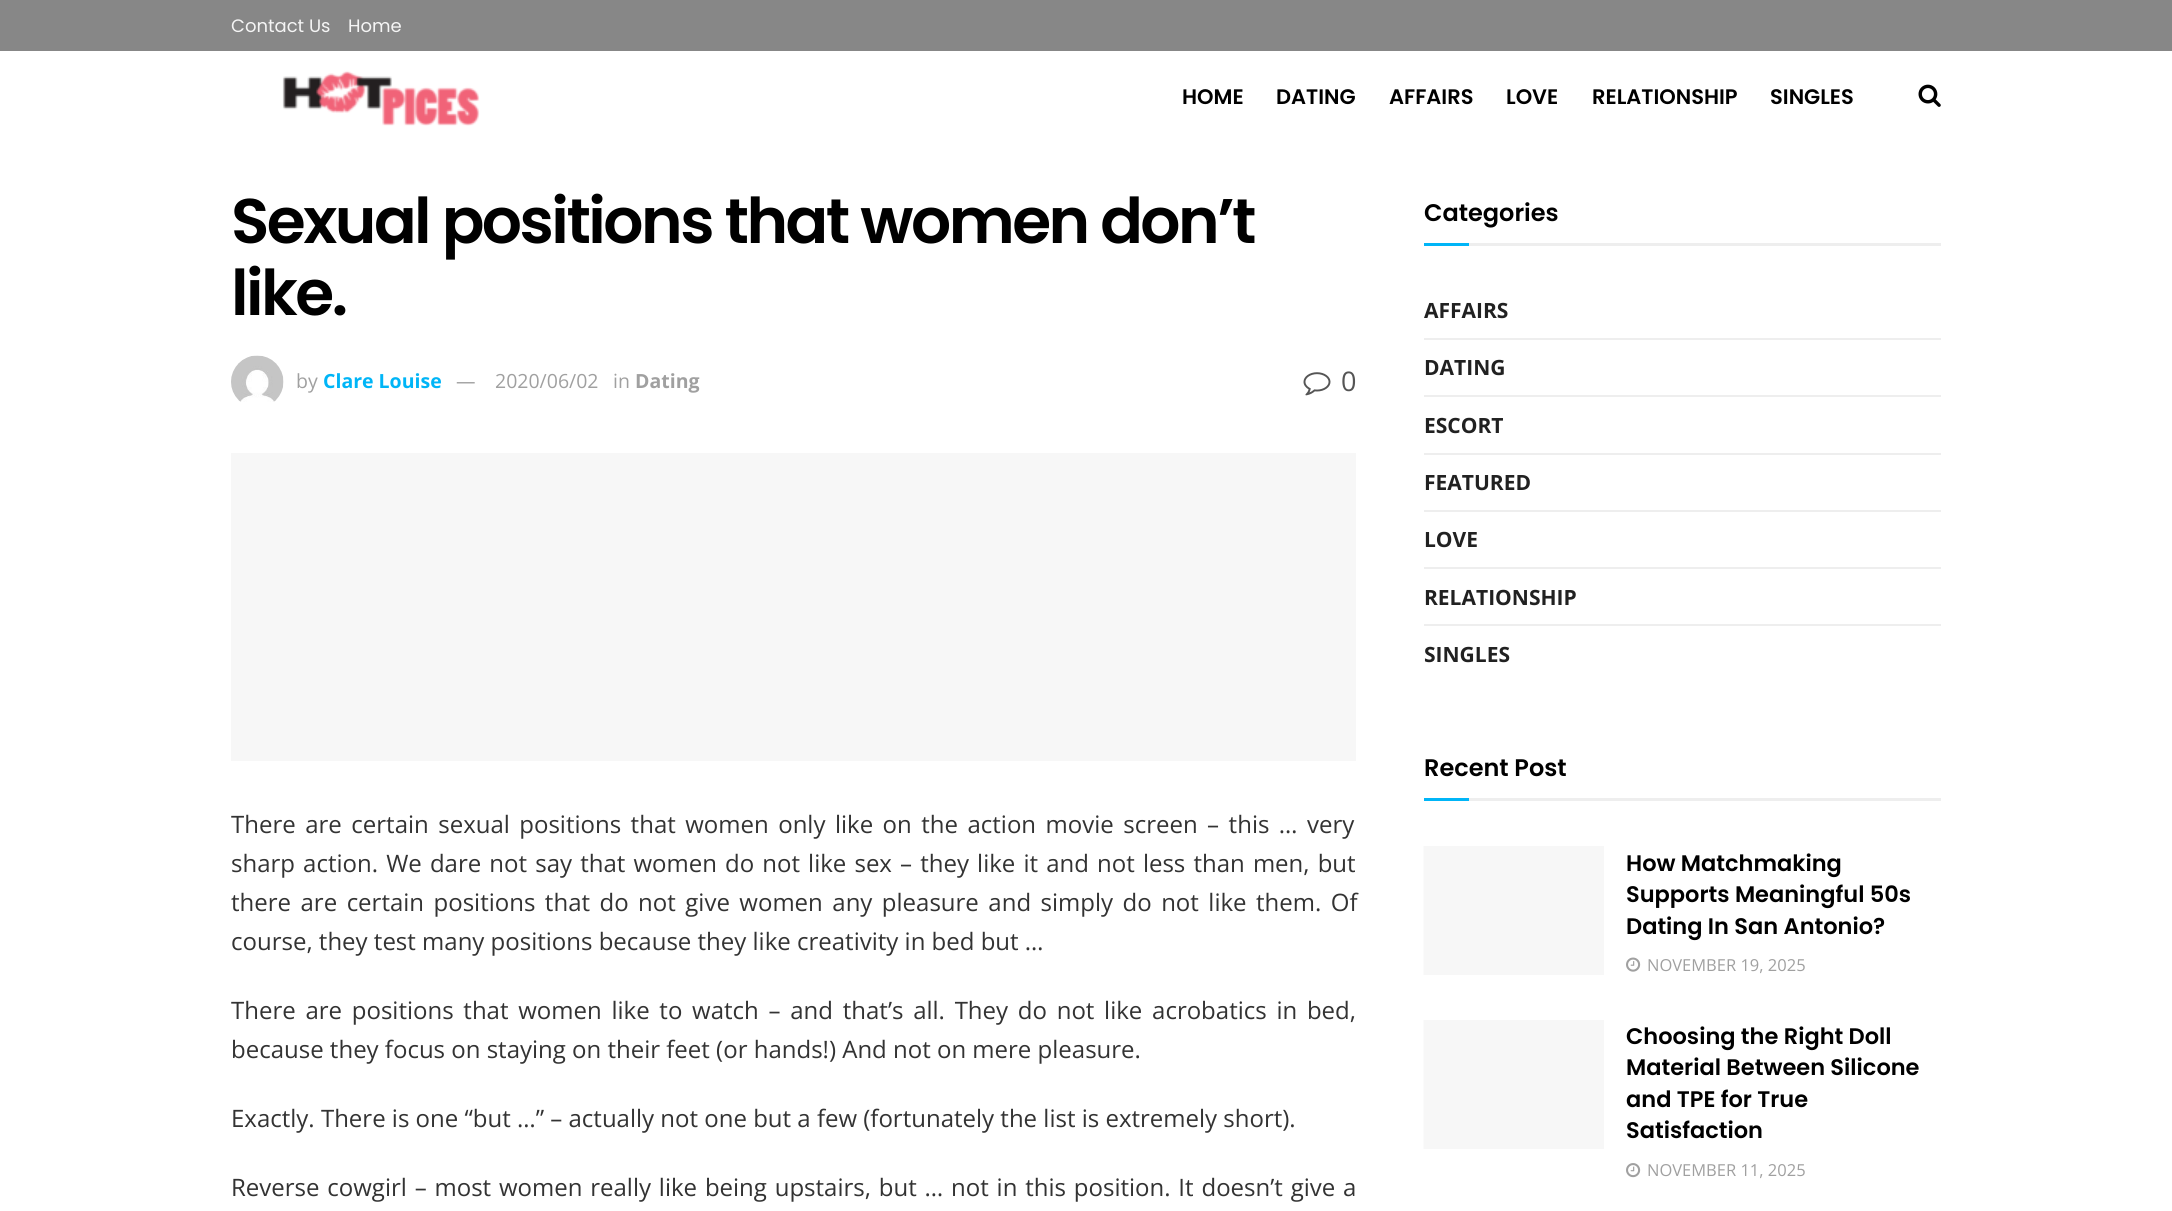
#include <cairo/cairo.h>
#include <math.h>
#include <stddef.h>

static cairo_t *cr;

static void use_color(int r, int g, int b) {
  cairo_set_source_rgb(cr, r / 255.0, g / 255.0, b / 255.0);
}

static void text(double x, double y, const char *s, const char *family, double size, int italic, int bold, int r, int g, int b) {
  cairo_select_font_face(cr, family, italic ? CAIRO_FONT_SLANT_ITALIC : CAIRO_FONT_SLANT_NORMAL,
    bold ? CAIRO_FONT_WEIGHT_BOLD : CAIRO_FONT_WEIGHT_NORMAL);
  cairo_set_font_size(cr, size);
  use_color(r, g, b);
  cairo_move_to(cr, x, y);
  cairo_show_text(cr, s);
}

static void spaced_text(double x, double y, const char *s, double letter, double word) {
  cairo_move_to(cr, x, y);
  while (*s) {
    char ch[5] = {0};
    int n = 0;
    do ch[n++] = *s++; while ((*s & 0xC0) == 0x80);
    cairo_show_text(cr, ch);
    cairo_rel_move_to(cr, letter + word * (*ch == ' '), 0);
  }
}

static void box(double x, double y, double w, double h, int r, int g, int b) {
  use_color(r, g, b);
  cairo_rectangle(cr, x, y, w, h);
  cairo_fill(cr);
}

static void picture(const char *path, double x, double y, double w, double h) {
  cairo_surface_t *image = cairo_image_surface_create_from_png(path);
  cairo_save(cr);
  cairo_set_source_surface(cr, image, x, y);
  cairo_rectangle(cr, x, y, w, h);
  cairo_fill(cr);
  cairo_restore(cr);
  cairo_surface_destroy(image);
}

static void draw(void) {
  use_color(255, 255, 255);
  cairo_paint(cr);
  box(0, 0, 2172, 51, 135, 135, 135);
  picture("img_01.png", 282, 70, 198, 56);
  picture("img_02.png", 1918, 84, 23, 23);
  picture("img_03.png", 231, 355, 53, 47);
  picture("img_04.png", 1303, 372, 28, 24);
  box(231, 453, 1125, 308, 247, 247, 247);
  box(1469, 243, 472, 3, 238, 238, 238);
  box(1424, 243, 45, 3, 0, 181, 247);
  box(1424, 338, 517, 2, 238, 238, 238);
  box(1424, 395, 517, 2, 238, 238, 238);
  box(1424, 453, 517, 2, 238, 238, 238);
  box(1424, 510, 517, 2, 238, 238, 238);
  box(1424, 567, 517, 2, 238, 238, 238);
  box(1424, 624, 517, 2, 238, 238, 238);
  box(1469, 798, 472, 3, 238, 238, 238);
  box(1424, 798, 45, 3, 0, 181, 247);
  box(1424, 846, 180, 129, 247, 247, 247);
  box(1423, 846, 1, 129, 251, 251, 251);
  picture("img_05.png", 1626, 957, 15, 15);
  box(1424, 1020, 180, 129, 247, 247, 247);
  box(1423, 1020, 1, 129, 251, 251, 251);
  picture("img_06.png", 1626, 1163, 15, 15);
  text(231, 32, "Contact Us", "Poppins", 18, 0, 0, 245, 245, 245);
  text(348, 32, "Home", "Poppins", 18, 0, 0, 245, 245, 245);
  text(1182, 104, "HOME", "Poppins SemiBold", 21, 0, 0, 0, 0, 0);
  text(1276, 104, "DATING", "Poppins SemiBold", 21, 0, 0, 0, 0, 0);
  text(1389, 104, "AFFAIRS", "Poppins SemiBold", 21, 0, 0, 0, 0, 0);
  text(1506, 104, "LOVE", "Poppins SemiBold", 21, 0, 0, 0, 0, 0);
  text(1592, 104, "RELATIONSHIP", "Poppins SemiBold", 21, 0, 0, 0, 0, 0);
  text(1770, 104, "SINGLES", "Poppins SemiBold", 21, 0, 0, 0, 0, 0);
  cairo_set_font_size(cr, 63);
  spaced_text(231, 243, "Sexual positions that women don’t", -2.5, 0);
  spaced_text(231, 315, "like.", -2.5, 0);
  text(296, 388, "by", "Open Sans", 19.5, 0, 0, 160, 160, 160);
  text(323, 388, "Clare Louise", "Open Sans", 19.5, 0, 1, 0, 181, 247);
  text(456, 388, "—", "Open Sans", 19.5, 0, 0, 160, 160, 160);
  text(495, 388, "2020/06/02", "Open Sans", 19.5, 0, 0, 160, 160, 160);
  text(613, 388, "in", "Open Sans", 19.5, 0, 0, 160, 160, 160);
  text(635, 388, "Dating", "Open Sans", 19.5, 0, 1, 160, 160, 160);
  text(1341, 391, "0", "Open Sans", 27, 0, 0, 85, 85, 85);
  cairo_set_font_size(cr, 24);
  use_color(51, 51, 51);
  spaced_text(231, 833, "There are certain sexual positions that women only like on the action movie screen – this … very", 0, 3.25);
  spaced_text(231, 872, "sharp action. We dare not say that women do not like sex – they like it and not less than men, but", 0, 1.9);
  spaced_text(231, 911, "there are certain positions that do not give women any pleasure and simply do not like them. Of", 0, 3.25);
  text(231, 950, "course, they test many positions because they like creativity in bed but …", "Open Sans", 24, 0, 0, 51, 51, 51);
  spaced_text(231, 1019, "There are positions that women like to watch – and that’s all. They do not like acrobatics in bed,", 0, 3.5);
  text(231, 1058, "because they focus on staying on their feet (or hands!) And not on mere pleasure.", "Open Sans", 24, 0, 0, 51, 51, 51);
  text(231, 1127, "Exactly. There is one “but …” – actually not one but a few (fortunately the list is extremely short).", "Open Sans", 24, 0, 0, 51, 51, 51);
  spaced_text(231, 1196, "Reverse cowgirl – most women really like being upstairs, but … not in this position. It doesn’t give a", 0, 1.6);
  text(1424, 221, "Categories", "Poppins SemiBold", 24, 0, 0, 0, 0, 0);
  text(1424, 318, "AFFAIRS", "Open Sans", 21, 0, 1, 33, 33, 33);
  text(1424, 375, "DATING", "Open Sans", 21, 0, 1, 33, 33, 33);
  text(1424, 433, "ESCORT", "Open Sans", 21, 0, 1, 33, 33, 33);
  text(1424, 490, "FEATURED", "Open Sans", 21, 0, 1, 33, 33, 33);
  text(1424, 547, "LOVE", "Open Sans", 21, 0, 1, 33, 33, 33);
  text(1424, 605, "RELATIONSHIP", "Open Sans", 21, 0, 1, 33, 33, 33);
  text(1424, 662, "SINGLES", "Open Sans", 21, 0, 1, 33, 33, 33);
  text(1424, 776, "Recent Post", "Poppins SemiBold", 24, 0, 0, 0, 0, 0);
  text(1626, 871, "How Matchmaking", "Poppins SemiBold", 22.5, 0, 0, 0, 0, 0);
  text(1626, 902, "Supports Meaningful 50s", "Poppins SemiBold", 22.5, 0, 0, 0, 0, 0);
  text(1626, 934, "Dating In San Antonio?", "Poppins SemiBold", 22.5, 0, 0, 0, 0, 0);
  text(1647, 971, "NOVEMBER 19, 2025", "Open Sans", 16.5, 0, 0, 160, 160, 160);
  text(1626, 1044, "Choosing the Right Doll", "Poppins SemiBold", 22.5, 0, 0, 0, 0, 0);
  text(1626, 1075, "Material Between Silicone", "Poppins SemiBold", 22.5, 0, 0, 0, 0, 0);
  text(1626, 1107, "and TPE for True", "Poppins SemiBold", 22.5, 0, 0, 0, 0, 0);
  text(1626, 1138, "Satisfaction", "Poppins SemiBold", 22.5, 0, 0, 0, 0, 0);
  text(1647, 1176, "NOVEMBER 11, 2025", "Open Sans", 16.5, 0, 0, 160, 160, 160);
}

int main(void) {
  cairo_surface_t *surface = cairo_image_surface_create(CAIRO_FORMAT_RGB24, 2172, 1211);
  cr = cairo_create(surface);
  cairo_font_options_t *options = cairo_font_options_create();
  cairo_font_options_set_hint_metrics(options, CAIRO_HINT_METRICS_OFF);
  cairo_font_options_set_hint_style(options, CAIRO_HINT_STYLE_NONE);
  cairo_set_font_options(cr, options);
  cairo_set_miter_limit(cr, 4);
  draw();
  cairo_surface_write_to_png(surface, "out.png");
  cairo_font_options_destroy(options);
  cairo_destroy(cr);
  cairo_surface_destroy(surface);
  return 0;
}
